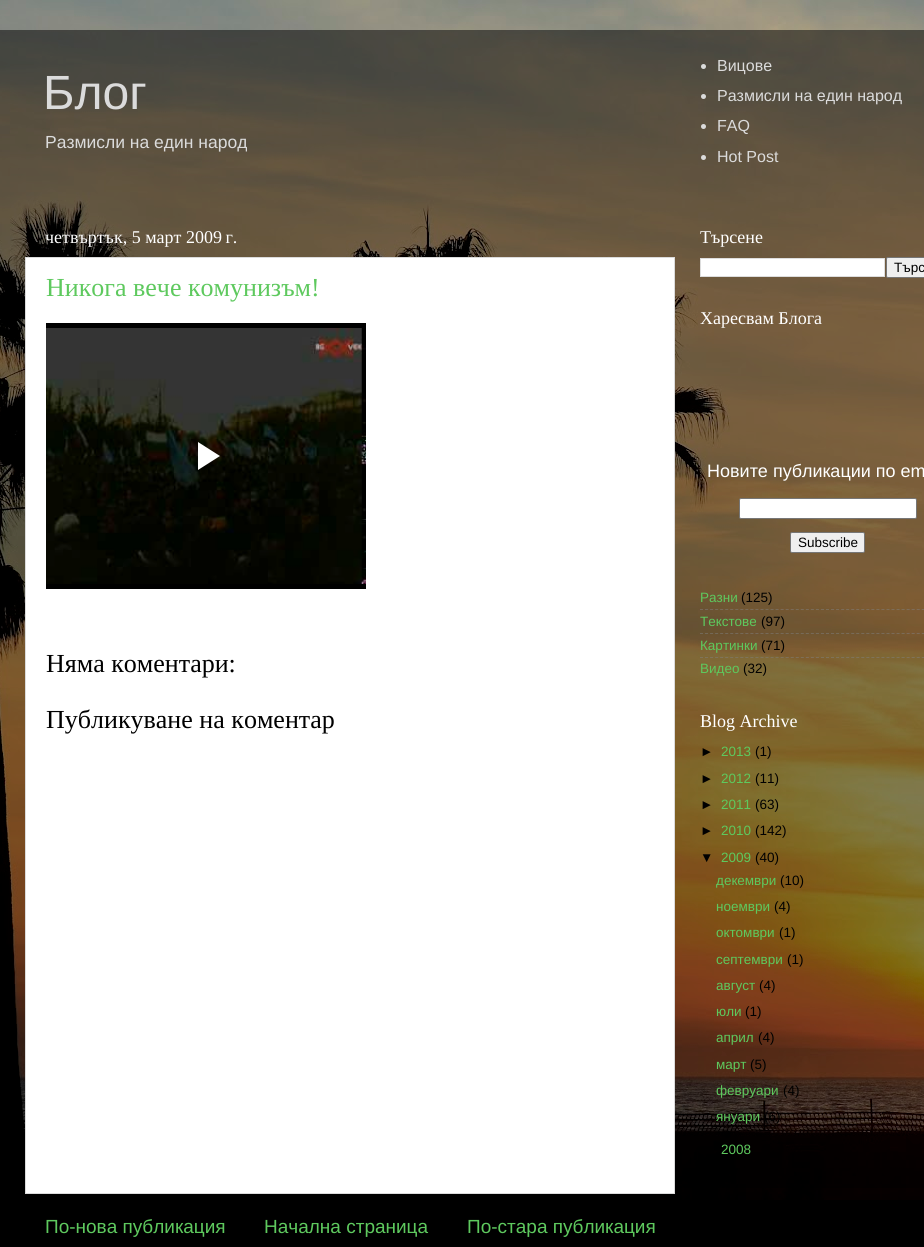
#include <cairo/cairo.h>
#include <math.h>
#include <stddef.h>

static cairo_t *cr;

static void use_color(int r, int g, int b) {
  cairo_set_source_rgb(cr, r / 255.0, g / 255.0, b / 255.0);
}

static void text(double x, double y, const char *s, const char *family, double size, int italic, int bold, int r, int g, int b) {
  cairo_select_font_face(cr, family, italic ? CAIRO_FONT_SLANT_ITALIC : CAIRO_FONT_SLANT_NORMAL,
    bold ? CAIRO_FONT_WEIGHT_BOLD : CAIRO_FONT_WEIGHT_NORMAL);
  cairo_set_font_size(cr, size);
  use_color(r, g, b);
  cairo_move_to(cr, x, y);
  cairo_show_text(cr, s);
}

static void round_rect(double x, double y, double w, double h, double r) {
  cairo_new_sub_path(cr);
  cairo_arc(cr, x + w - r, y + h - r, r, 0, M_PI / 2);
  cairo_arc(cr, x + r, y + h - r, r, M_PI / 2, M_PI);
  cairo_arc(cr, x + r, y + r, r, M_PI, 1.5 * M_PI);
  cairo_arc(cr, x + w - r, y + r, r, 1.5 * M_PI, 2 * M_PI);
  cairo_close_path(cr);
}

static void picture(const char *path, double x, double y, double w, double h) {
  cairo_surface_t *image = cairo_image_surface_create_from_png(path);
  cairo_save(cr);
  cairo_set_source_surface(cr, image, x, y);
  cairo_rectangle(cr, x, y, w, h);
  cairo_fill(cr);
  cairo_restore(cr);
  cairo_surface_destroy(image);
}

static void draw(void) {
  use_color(0, 0, 0);
  cairo_paint(cr);
  picture("img_01.png", 0, 0, 924, 1200);
  use_color(219, 219, 219);
  cairo_arc(cr, 703.5, 66.5, 2.5, 0, 2 * M_PI);
  cairo_fill(cr);
  cairo_arc(cr, 703.5, 96.5, 2.5, 0, 2 * M_PI);
  cairo_fill(cr);
  cairo_arc(cr, 703.5, 126.5, 2.5, 0, 2 * M_PI);
  cairo_fill(cr);
  cairo_arc(cr, 703.5, 157.5, 2.5, 0, 2 * M_PI);
  cairo_fill(cr);
  use_color(255, 255, 255);
  cairo_rectangle(cr, 25.5, 257.5, 649, 936);
  cairo_fill_preserve(cr);
  use_color(219, 219, 219);
  cairo_set_line_width(cr, 1);
  cairo_stroke(cr);
  picture("img_02.png", 46, 323, 320, 266);
  use_color(255, 255, 255);
  cairo_rectangle(cr, 700.5, 258.5, 184, 18);
  cairo_fill_preserve(cr);
  use_color(221, 221, 221);
  cairo_stroke(cr);
  use_color(239, 239, 239);
  round_rect(886.5, 257.5, 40, 20, 1.5);
  cairo_fill_preserve(cr);
  use_color(118, 118, 118);
  cairo_stroke(cr);
  use_color(255, 255, 255);
  round_rect(739.5, 498.5, 177, 20, 1.5);
  cairo_fill_preserve(cr);
  use_color(118, 118, 118);
  cairo_stroke(cr);
  use_color(239, 239, 239);
  round_rect(790.5, 532.5, 74, 20, 1.5);
  cairo_fill_preserve(cr);
  use_color(118, 118, 118);
  cairo_stroke(cr);
  cairo_new_path(cr);
  cairo_move_to(cr, 700, 609.5);
  cairo_line_to(cr, 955, 609.5);
  cairo_set_source_rgba(cr, 0.502, 0.502, 0.502, 0.5);
  cairo_set_dash(cr, (double[]){3, 2.04}, 2, 0);
  cairo_stroke(cr);
  cairo_new_path(cr);
  cairo_move_to(cr, 700, 633.5);
  cairo_line_to(cr, 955, 633.5);
  cairo_stroke(cr);
  cairo_new_path(cr);
  cairo_move_to(cr, 700, 657.5);
  cairo_line_to(cr, 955, 657.5);
  cairo_stroke(cr);
  text(43, 109, "Блог", "Liberation Sans", 48, 0, 0, 219, 219, 219);
  text(45, 148, "Размисли на един народ", "Liberation Sans", 17.5, 0, 0, 219, 219, 219);
  text(717, 71, "Вицове", "Liberation Sans", 16, 0, 0, 219, 219, 219);
  text(717, 101, "Размисли на един народ", "Liberation Sans", 16, 0, 0, 219, 219, 219);
  text(717, 131, "FAQ", "Liberation Sans", 16, 0, 0, 219, 219, 219);
  text(717, 162, "Hot Post", "Liberation Sans", 16, 0, 0, 219, 219, 219);
  text(45, 243, "четвъртък, 5 март 2009 г.", "Liberation Serif", 18, 0, 0, 255, 255, 255);
  text(46, 296, "Никога вече комунизъм!", "Liberation Serif", 26, 0, 0, 94, 201, 94);
  text(46, 672, "Няма коментари:", "Liberation Serif", 26, 0, 0, 0, 0, 0);
  text(46, 728, "Публикуване на коментар", "Liberation Serif", 26, 0, 0, 0, 0, 0);
  text(45, 1233, "По-нова публикация", "Liberation Sans", 19, 0, 0, 94, 201, 94);
  text(264, 1233, "Начална страница", "Liberation Sans", 19, 0, 0, 94, 201, 94);
  text(467, 1233, "По-стара публикация", "Liberation Sans", 19, 0, 0, 94, 201, 94);
  text(700, 243, "Търсене", "Liberation Serif", 18, 0, 0, 255, 255, 255);
  text(894, 272, "Търс", "Liberation Sans", 13.5, 0, 0, 0, 0, 0);
  text(700, 324, "Харесвам Блога", "Liberation Serif", 18, 0, 0, 255, 255, 255);
  text(707, 477, "Новите публикации по em", "Liberation Sans", 18, 0, 0, 255, 255, 255);
  text(798, 547, "Subscribe", "Liberation Sans", 13.5, 0, 0, 0, 0, 0);
  text(700, 602, "Разни", "Liberation Sans", 13.5, 0, 0, 94, 201, 94);
  text(741, 602, "(125)", "Liberation Sans", 13.5, 0, 0, 0, 0, 0);
  text(700, 626, "Текстове", "Liberation Sans", 13.5, 0, 0, 94, 201, 94);
  text(761, 626, "(97)", "Liberation Sans", 13.5, 0, 0, 0, 0, 0);
  text(700, 650, "Картинки", "Liberation Sans", 13.5, 0, 0, 94, 201, 94);
  text(761, 650, "(71)", "Liberation Sans", 13.5, 0, 0, 0, 0, 0);
  text(700, 673, "Видео", "Liberation Sans", 13.5, 0, 0, 94, 201, 94);
  text(743, 673, "(32)", "Liberation Sans", 13.5, 0, 0, 0, 0, 0);
  text(700, 727, "Blog Archive", "Liberation Serif", 18, 0, 0, 255, 255, 255);
  text(700, 756, "►", "Liberation Sans", 13.5, 0, 0, 0, 0, 0);
  text(721, 756, "2013", "Liberation Sans", 13.5, 0, 0, 94, 201, 94);
  text(755, 756, "(1)", "Liberation Sans", 13.5, 0, 0, 0, 0, 0);
  text(700, 783, "►", "Liberation Sans", 13.5, 0, 0, 0, 0, 0);
  text(721, 783, "2012", "Liberation Sans", 13.5, 0, 0, 94, 201, 94);
  text(755, 783, "(11)", "Liberation Sans", 13.5, 0, 0, 0, 0, 0);
  text(700, 809, "►", "Liberation Sans", 13.5, 0, 0, 0, 0, 0);
  text(721, 809, "2011", "Liberation Sans", 13.5, 0, 0, 94, 201, 94);
  text(755, 809, "(63)", "Liberation Sans", 13.5, 0, 0, 0, 0, 0);
  text(700, 835, "►", "Liberation Sans", 13.5, 0, 0, 0, 0, 0);
  text(721, 835, "2010", "Liberation Sans", 13.5, 0, 0, 94, 201, 94);
  text(755, 835, "(142)", "Liberation Sans", 13.5, 0, 0, 0, 0, 0);
  text(700, 862, "▼", "Liberation Sans", 13.5, 0, 0, 0, 0, 0);
  text(721, 862, "2009", "Liberation Sans", 13.5, 0, 0, 94, 201, 94);
  text(755, 862, "(40)", "Liberation Sans", 13.5, 0, 0, 0, 0, 0);
  text(716, 885, "декември", "Liberation Sans", 13.5, 0, 0, 94, 201, 94);
  text(780, 885, "(10)", "Liberation Sans", 13.5, 0, 0, 0, 0, 0);
  text(716, 911, "ноември", "Liberation Sans", 13.5, 0, 0, 94, 201, 94);
  text(774, 911, "(4)", "Liberation Sans", 13.5, 0, 0, 0, 0, 0);
  text(716, 937, "октомври", "Liberation Sans", 13.5, 0, 0, 94, 201, 94);
  text(779, 937, "(1)", "Liberation Sans", 13.5, 0, 0, 0, 0, 0);
  text(716, 964, "септември", "Liberation Sans", 13.5, 0, 0, 94, 201, 94);
  text(787, 964, "(1)", "Liberation Sans", 13.5, 0, 0, 0, 0, 0);
  text(716, 990, "август", "Liberation Sans", 13.5, 0, 0, 94, 201, 94);
  text(759, 990, "(4)", "Liberation Sans", 13.5, 0, 0, 0, 0, 0);
  text(716, 1016, "юли", "Liberation Sans", 13.5, 0, 0, 94, 201, 94);
  text(745, 1016, "(1)", "Liberation Sans", 13.5, 0, 0, 0, 0, 0);
  text(716, 1042, "април", "Liberation Sans", 13.5, 0, 0, 94, 201, 94);
  text(758, 1042, "(4)", "Liberation Sans", 13.5, 0, 0, 0, 0, 0);
  text(716, 1069, "март", "Liberation Sans", 13.5, 0, 0, 94, 201, 94);
  text(750, 1069, "(5)", "Liberation Sans", 13.5, 0, 0, 0, 0, 0);
  text(716, 1095, "февруари", "Liberation Sans", 13.5, 0, 0, 94, 201, 94);
  text(783, 1095, "(4)", "Liberation Sans", 13.5, 0, 0, 0, 0, 0);
  text(716, 1121, "януари", "Liberation Sans", 13.5, 0, 0, 94, 201, 94);
  text(764, 1121, "(6)", "Liberation Sans", 13.5, 0, 0, 0, 0, 0);
  text(721, 1154, "2008", "Liberation Sans", 13.5, 0, 0, 94, 201, 94);
}

int main(void) {
  cairo_surface_t *surface = cairo_image_surface_create(CAIRO_FORMAT_RGB24, 924, 1247);
  cr = cairo_create(surface);
  cairo_font_options_t *options = cairo_font_options_create();
  cairo_font_options_set_hint_metrics(options, CAIRO_HINT_METRICS_OFF);
  cairo_font_options_set_hint_style(options, CAIRO_HINT_STYLE_NONE);
  cairo_set_font_options(cr, options);
  cairo_set_miter_limit(cr, 4);
  draw();
  cairo_surface_write_to_png(surface, "out.png");
  cairo_font_options_destroy(options);
  cairo_destroy(cr);
  cairo_surface_destroy(surface);
  return 0;
}
